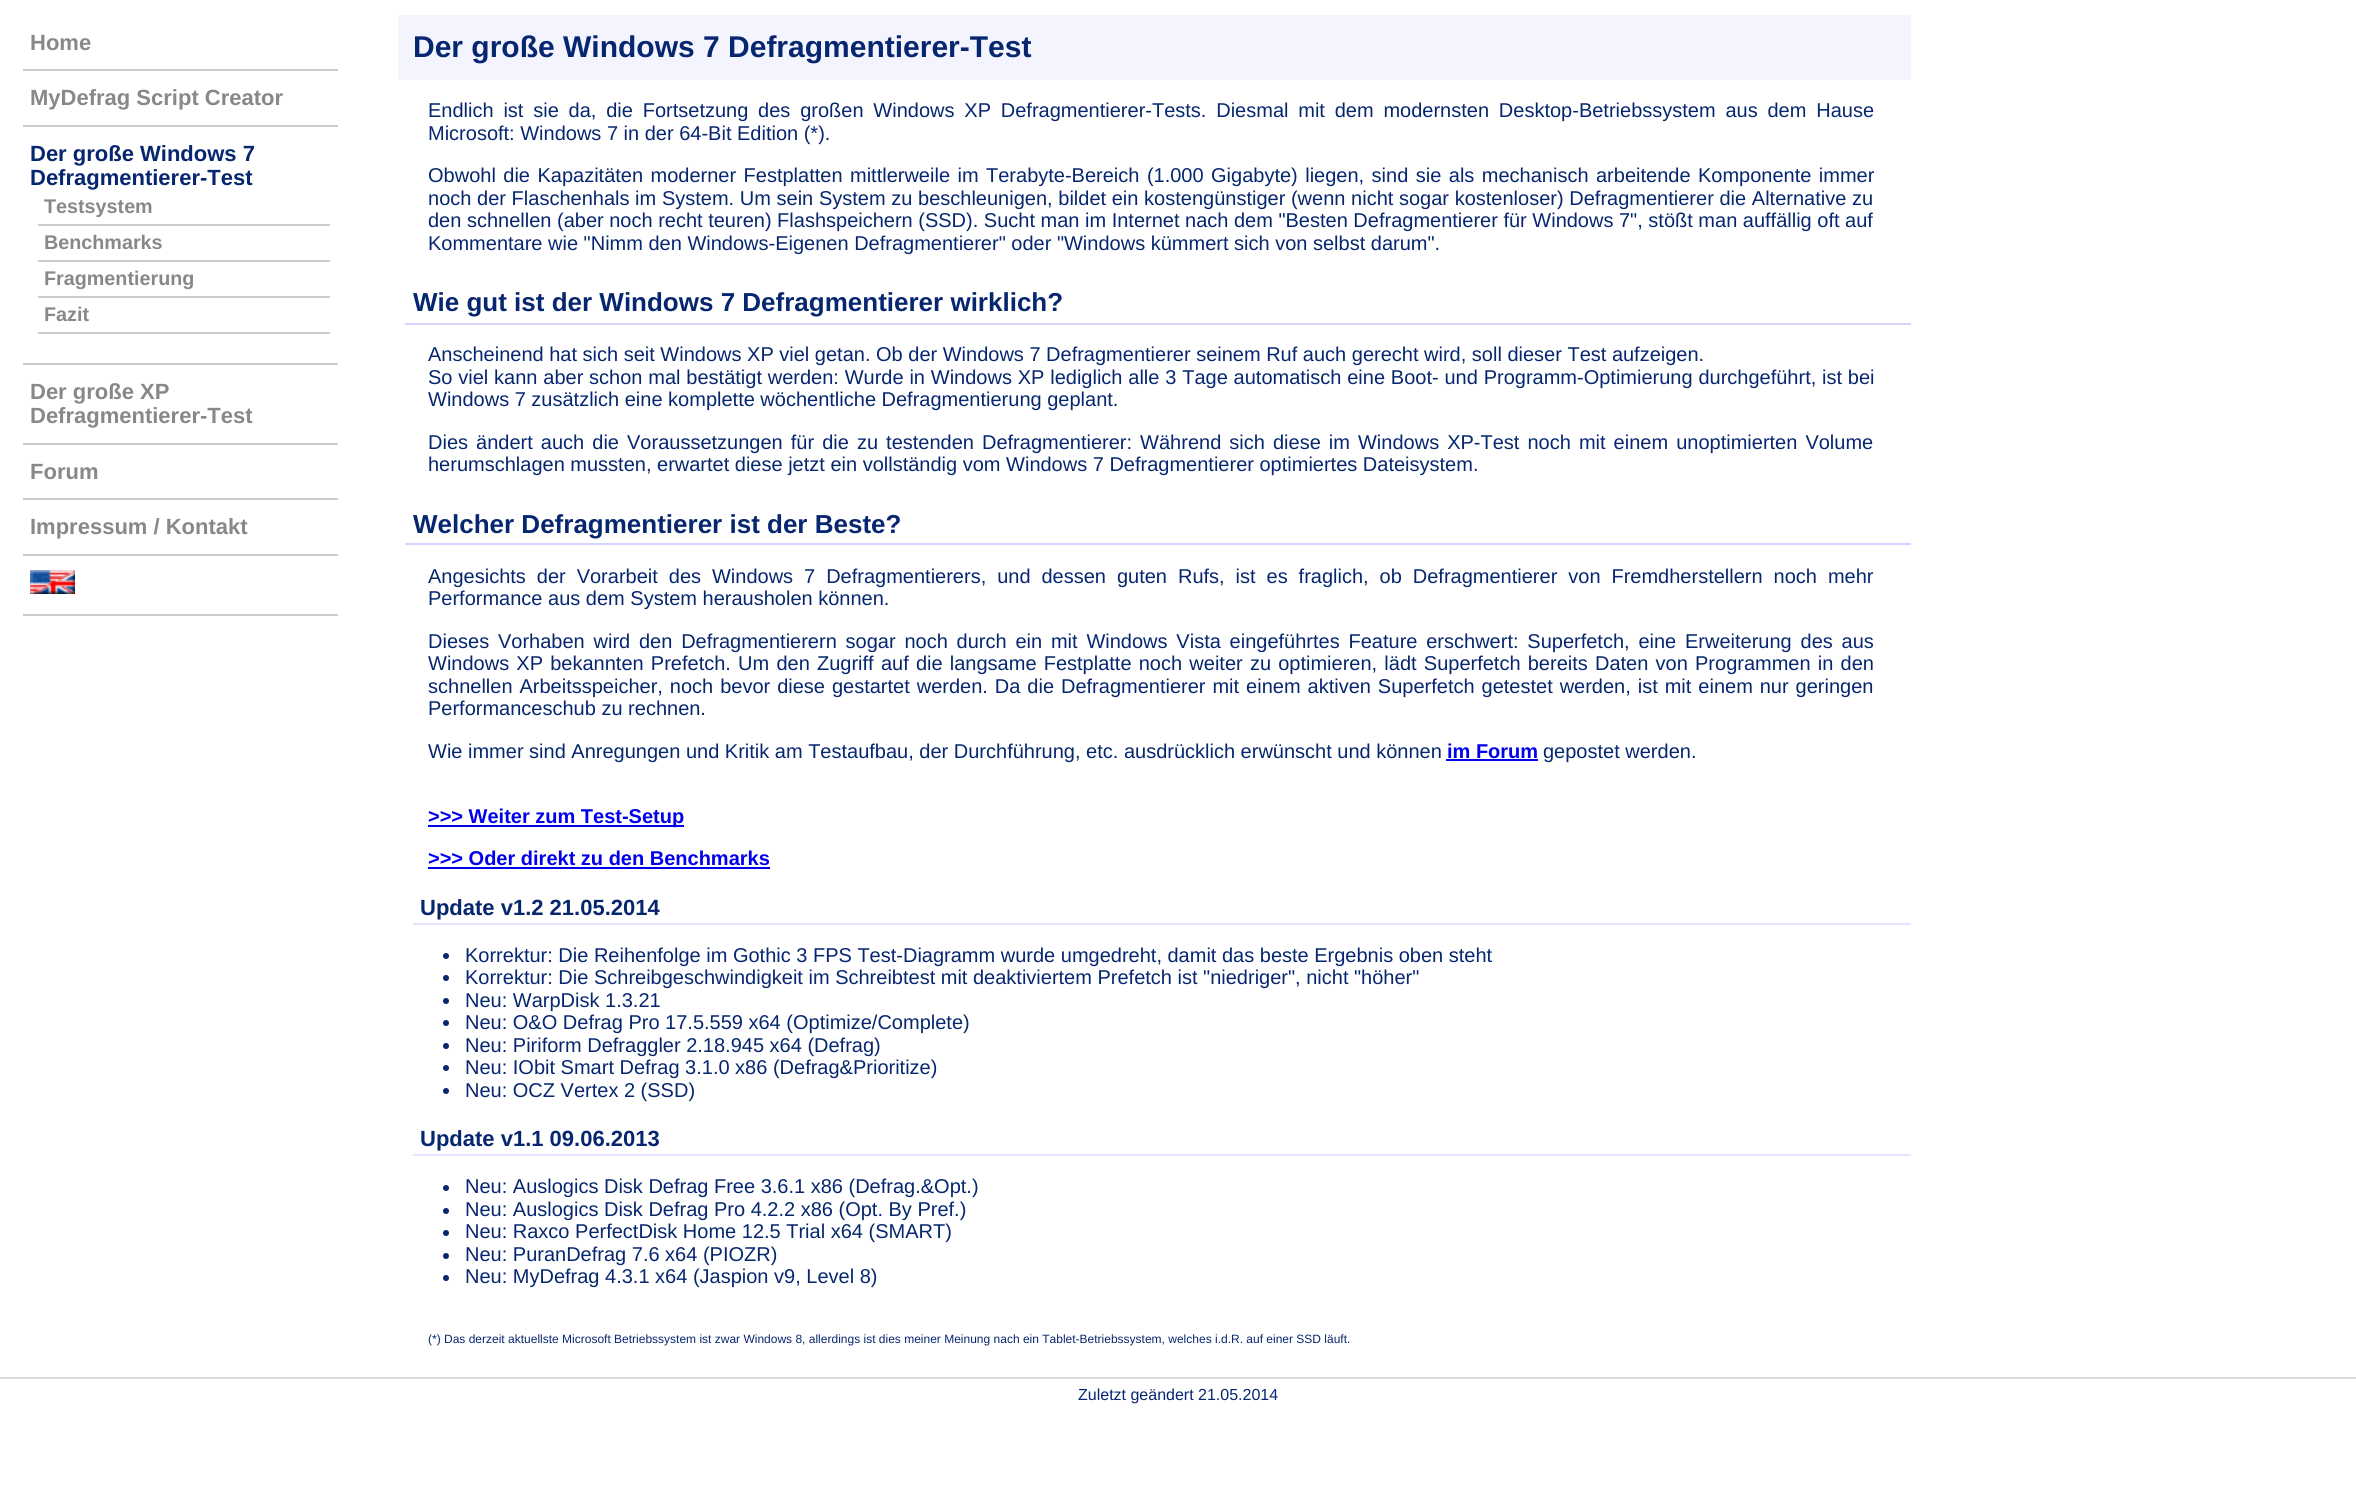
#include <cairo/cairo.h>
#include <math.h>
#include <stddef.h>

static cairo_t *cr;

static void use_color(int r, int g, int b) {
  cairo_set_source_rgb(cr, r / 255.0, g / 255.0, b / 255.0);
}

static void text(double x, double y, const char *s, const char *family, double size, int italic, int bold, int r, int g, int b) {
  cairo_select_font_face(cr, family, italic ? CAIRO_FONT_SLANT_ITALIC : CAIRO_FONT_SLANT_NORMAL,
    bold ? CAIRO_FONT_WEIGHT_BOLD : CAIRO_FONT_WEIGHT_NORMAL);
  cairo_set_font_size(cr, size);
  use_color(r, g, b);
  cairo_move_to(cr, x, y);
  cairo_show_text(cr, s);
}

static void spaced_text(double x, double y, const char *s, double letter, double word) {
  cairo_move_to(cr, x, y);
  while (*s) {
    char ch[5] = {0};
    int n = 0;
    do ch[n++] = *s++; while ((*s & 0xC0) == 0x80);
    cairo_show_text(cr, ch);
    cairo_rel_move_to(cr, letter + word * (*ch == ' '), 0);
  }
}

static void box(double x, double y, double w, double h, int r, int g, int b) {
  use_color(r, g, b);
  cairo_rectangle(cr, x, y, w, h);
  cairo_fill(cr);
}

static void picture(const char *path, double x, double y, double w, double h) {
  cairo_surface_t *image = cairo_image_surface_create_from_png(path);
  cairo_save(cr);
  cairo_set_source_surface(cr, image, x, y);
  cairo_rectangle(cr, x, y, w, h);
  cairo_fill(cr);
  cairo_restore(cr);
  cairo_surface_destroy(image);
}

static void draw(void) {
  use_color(255, 255, 255);
  cairo_paint(cr);
  box(23, 69, 315, 2, 204, 204, 204);
  box(23, 125, 315, 2, 204, 204, 204);
  box(23, 363, 315, 2, 204, 204, 204);
  box(38, 224, 292, 2, 204, 204, 204);
  box(38, 260, 292, 2, 204, 204, 204);
  box(38, 296, 292, 2, 204, 204, 204);
  box(38, 332, 292, 2, 204, 204, 204);
  box(23, 443, 315, 2, 204, 204, 204);
  box(23, 498, 315, 2, 204, 204, 204);
  box(23, 554, 315, 2, 204, 204, 204);
  box(23, 614, 315, 2, 204, 204, 204);
  picture("img_01.png", 30, 570, 45, 24);
  box(398, 15, 1513, 65, 244, 244, 255);
  box(405, 323, 1506, 2, 212, 212, 255);
  box(405, 543, 1506, 2, 212, 212, 255);
  box(1446, 759, 92, 2, 0, 0, 238);
  box(428, 825, 256, 2, 0, 0, 238);
  box(428, 867, 342, 2, 0, 0, 238);
  box(413, 923, 1498, 2, 228, 228, 255);
  use_color(6, 38, 111);
  cairo_arc(cr, 446, 956, 3, 0, 2 * M_PI);
  cairo_fill(cr);
  cairo_arc(cr, 446, 978, 3, 0, 2 * M_PI);
  cairo_fill(cr);
  cairo_arc(cr, 446, 1001, 3, 0, 2 * M_PI);
  cairo_fill(cr);
  cairo_arc(cr, 446, 1023, 3, 0, 2 * M_PI);
  cairo_fill(cr);
  cairo_arc(cr, 446, 1046, 3, 0, 2 * M_PI);
  cairo_fill(cr);
  cairo_arc(cr, 446, 1068, 3, 0, 2 * M_PI);
  cairo_fill(cr);
  cairo_arc(cr, 446, 1091, 3, 0, 2 * M_PI);
  cairo_fill(cr);
  box(413, 1154, 1498, 2, 228, 228, 255);
  use_color(6, 38, 111);
  cairo_arc(cr, 446, 1188, 3, 0, 2 * M_PI);
  cairo_fill(cr);
  cairo_arc(cr, 446, 1211, 3, 0, 2 * M_PI);
  cairo_fill(cr);
  cairo_arc(cr, 446, 1233, 3, 0, 2 * M_PI);
  cairo_fill(cr);
  cairo_arc(cr, 446, 1256, 3, 0, 2 * M_PI);
  cairo_fill(cr);
  cairo_arc(cr, 446, 1278, 3, 0, 2 * M_PI);
  cairo_fill(cr);
  box(0, 1377, 2356, 2, 221, 221, 221);
  text(30, 50, "Home", "Liberation Sans", 22, 0, 1, 136, 136, 136);
  text(30, 105, "MyDefrag Script Creator", "Liberation Sans", 22, 0, 1, 136, 136, 136);
  text(30, 161, "Der große Windows 7", "Liberation Sans", 22, 0, 1, 6, 38, 111);
  text(30, 185, "Defragmentierer-Test", "Liberation Sans", 22, 0, 1, 6, 38, 111);
  text(44, 213, "Testsystem", "Liberation Sans", 19.75, 0, 1, 136, 136, 136);
  text(44, 249, "Benchmarks", "Liberation Sans", 19.75, 0, 1, 136, 136, 136);
  text(44, 285, "Fragmentierung", "Liberation Sans", 19.75, 0, 1, 136, 136, 136);
  text(44, 321, "Fazit", "Liberation Sans", 19.75, 0, 1, 136, 136, 136);
  text(30, 399, "Der große XP", "Liberation Sans", 22, 0, 1, 136, 136, 136);
  text(30, 423, "Defragmentierer-Test", "Liberation Sans", 22, 0, 1, 136, 136, 136);
  text(30, 479, "Forum", "Liberation Sans", 22, 0, 1, 136, 136, 136);
  text(30, 534, "Impressum / Kontakt", "Liberation Sans", 22, 0, 1, 136, 136, 136);
  text(413, 57, "Der große Windows 7 Defragmentierer-Test", "Liberation Sans", 30, 0, 1, 6, 38, 111);
  cairo_select_font_face(cr, "Liberation Sans", CAIRO_FONT_SLANT_NORMAL, CAIRO_FONT_WEIGHT_NORMAL);
  cairo_set_font_size(cr, 20);
  spaced_text(428, 117, "Endlich ist sie da, die Fortsetzung des großen Windows XP Defragmentierer-Tests. Diesmal mit dem modernsten Desktop-Betriebssystem aus dem Hause", 0, 4.25);
  text(428, 140, "Microsoft: Windows 7 in der 64-Bit Edition (*).", "Liberation Sans", 20, 0, 0, 6, 38, 111);
  spaced_text(428, 182, "Obwohl die Kapazitäten moderner Festplatten mittlerweile im Terabyte-Bereich (1.000 Gigabyte) liegen, sind sie als mechanisch arbeitende Komponente immer", 0, 1.9);
  spaced_text(428, 205, "noch der Flaschenhals im System. Um sein System zu beschleunigen, bildet ein kostengünstiger (wenn nicht sogar kostenloser) Defragmentierer die Alternative zu", 0, 0.1);
  text(428, 227, "den schnellen (aber noch recht teuren) Flashspeichern (SSD). Sucht man im Internet nach dem \"Besten Defragmentierer für Windows 7\", stößt man auffällig oft auf", "Liberation Sans", 20, 0, 0, 6, 38, 111);
  text(428, 250, "Kommentare wie \"Nimm den Windows-Eigenen Defragmentierer\" oder \"Windows kümmert sich von selbst darum\".", "Liberation Sans", 20, 0, 0, 6, 38, 111);
  text(413, 311, "Wie gut ist der Windows 7 Defragmentierer wirklich?", "Liberation Sans", 26, 0, 1, 6, 38, 111);
  text(428, 361, "Anscheinend hat sich seit Windows XP viel getan. Ob der Windows 7 Defragmentierer seinem Ruf auch gerecht wird, soll dieser Test aufzeigen.", "Liberation Sans", 20, 0, 0, 6, 38, 111);
  spaced_text(428, 384, "So viel kann aber schon mal bestätigt werden: Wurde in Windows XP lediglich alle 3 Tage automatisch eine Boot- und Programm-Optimierung durchgeführt, ist bei", 0, 0.25);
  text(428, 406, "Windows 7 zusätzlich eine komplette wöchentliche Defragmentierung geplant.", "Liberation Sans", 20, 0, 0, 6, 38, 111);
  spaced_text(428, 449, "Dies ändert auch die Voraussetzungen für die zu testenden Defragmentierer: Während sich diese im Windows XP-Test noch mit einem unoptimierten Volume", 0, 2.5);
  text(428, 471, "herumschlagen mussten, erwartet diese jetzt ein vollständig vom Windows 7 Defragmentierer optimiertes Dateisystem.", "Liberation Sans", 20, 0, 0, 6, 38, 111);
  text(413, 533, "Welcher Defragmentierer ist der Beste?", "Liberation Sans", 26, 0, 1, 6, 38, 111);
  cairo_select_font_face(cr, "Liberation Sans", CAIRO_FONT_SLANT_NORMAL, CAIRO_FONT_WEIGHT_NORMAL);
  cairo_set_font_size(cr, 20);
  spaced_text(428, 583, "Angesichts der Vorarbeit des Windows 7 Defragmentierers, und dessen guten Rufs, ist es fraglich, ob Defragmentierer von Fremdherstellern noch mehr", 0, 5.4);
  text(428, 605, "Performance aus dem System herausholen können.", "Liberation Sans", 20, 0, 0, 6, 38, 111);
  spaced_text(428, 648, "Dieses Vorhaben wird den Defragmentierern sogar noch durch ein mit Windows Vista eingeführtes Feature erschwert: Superfetch, eine Erweiterung des aus", 0, 3.25);
  spaced_text(428, 670, "Windows XP bekannten Prefetch. Um den Zugriff auf die langsame Festplatte noch weiter zu optimieren, lädt Superfetch bereits Daten von Programmen in den", 0, 1.65);
  spaced_text(428, 693, "schnellen Arbeitsspeicher, noch bevor diese gestartet werden. Da die Defragmentierer mit einem aktiven Superfetch getestet werden, ist mit einem nur geringen", 0, 1.4);
  text(428, 715, "Performanceschub zu rechnen.", "Liberation Sans", 20, 0, 0, 6, 38, 111);
  text(428, 758, "Wie immer sind Anregungen und Kritik am Testaufbau, der Durchführung, etc. ausdrücklich erwünscht und können", "Liberation Sans", 20, 0, 0, 6, 38, 111);
  text(1447, 758, "im Forum", "Liberation Sans", 20, 0, 1, 0, 0, 238);
  text(1543, 758, "gepostet werden.", "Liberation Sans", 20, 0, 0, 6, 38, 111);
  text(428, 823, ">>> Weiter zum Test-Setup", "Liberation Sans", 20, 0, 1, 0, 0, 238);
  text(428, 865, ">>> Oder direkt zu den Benchmarks", "Liberation Sans", 20, 0, 1, 0, 0, 238);
  text(420, 915, "Update v1.2 21.05.2014", "Liberation Sans", 22, 0, 1, 6, 38, 111);
  text(465, 962, "Korrektur: Die Reihenfolge im Gothic 3 FPS Test-Diagramm wurde umgedreht, damit das beste Ergebnis oben steht", "Liberation Sans", 20, 0, 0, 6, 38, 111);
  text(465, 984, "Korrektur: Die Schreibgeschwindigkeit im Schreibtest mit deaktiviertem Prefetch ist \"niedriger\", nicht \"höher\"", "Liberation Sans", 20, 0, 0, 6, 38, 111);
  text(465, 1007, "Neu: WarpDisk 1.3.21", "Liberation Sans", 20, 0, 0, 6, 38, 111);
  text(465, 1029, "Neu: O&O Defrag Pro 17.5.559 x64 (Optimize/Complete)", "Liberation Sans", 20, 0, 0, 6, 38, 111);
  text(465, 1052, "Neu: Piriform Defraggler 2.18.945 x64 (Defrag)", "Liberation Sans", 20, 0, 0, 6, 38, 111);
  text(465, 1074, "Neu: IObit Smart Defrag 3.1.0 x86 (Defrag&Prioritize)", "Liberation Sans", 20, 0, 0, 6, 38, 111);
  text(465, 1097, "Neu: OCZ Vertex 2 (SSD)", "Liberation Sans", 20, 0, 0, 6, 38, 111);
  text(420, 1146, "Update v1.1 09.06.2013", "Liberation Sans", 22, 0, 1, 6, 38, 111);
  text(465, 1193, "Neu: Auslogics Disk Defrag Free 3.6.1 x86 (Defrag.&Opt.)", "Liberation Sans", 20, 0, 0, 6, 38, 111);
  text(465, 1216, "Neu: Auslogics Disk Defrag Pro 4.2.2 x86 (Opt. By Pref.)", "Liberation Sans", 20, 0, 0, 6, 38, 111);
  text(465, 1238, "Neu: Raxco PerfectDisk Home 12.5 Trial x64 (SMART)", "Liberation Sans", 20, 0, 0, 6, 38, 111);
  text(465, 1261, "Neu: PuranDefrag 7.6 x64 (PIOZR)", "Liberation Sans", 20, 0, 0, 6, 38, 111);
  text(465, 1283, "Neu: MyDefrag 4.3.1 x64 (Jaspion v9, Level 8)", "Liberation Sans", 20, 0, 0, 6, 38, 111);
  text(428, 1343, "(*) Das derzeit aktuellste Microsoft Betriebssystem ist zwar Windows 8, allerdings ist dies meiner Meinung nach ein Tablet-Betriebssystem, welches i.d.R. auf einer SSD läuft.", "Liberation Sans", 12, 0, 0, 6, 38, 111);
  text(1078, 1400, "Zuletzt geändert 21.05.2014", "Liberation Sans", 16, 0, 0, 6, 38, 111);
}

int main(void) {
  cairo_surface_t *surface = cairo_image_surface_create(CAIRO_FORMAT_RGB24, 2356, 1498);
  cr = cairo_create(surface);
  cairo_font_options_t *options = cairo_font_options_create();
  cairo_font_options_set_hint_metrics(options, CAIRO_HINT_METRICS_OFF);
  cairo_font_options_set_hint_style(options, CAIRO_HINT_STYLE_NONE);
  cairo_set_font_options(cr, options);
  cairo_set_miter_limit(cr, 4);
  draw();
  cairo_surface_write_to_png(surface, "out.png");
  cairo_font_options_destroy(options);
  cairo_destroy(cr);
  cairo_surface_destroy(surface);
  return 0;
}
